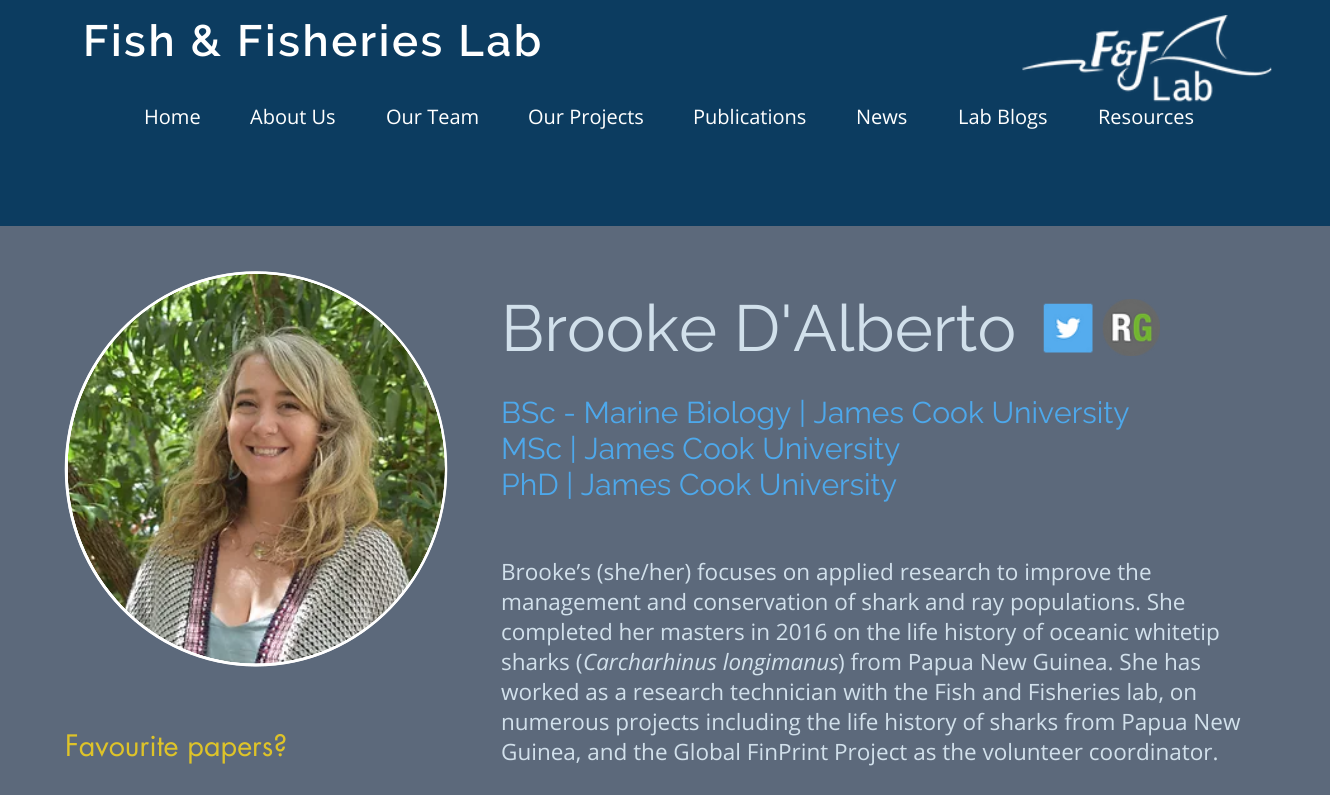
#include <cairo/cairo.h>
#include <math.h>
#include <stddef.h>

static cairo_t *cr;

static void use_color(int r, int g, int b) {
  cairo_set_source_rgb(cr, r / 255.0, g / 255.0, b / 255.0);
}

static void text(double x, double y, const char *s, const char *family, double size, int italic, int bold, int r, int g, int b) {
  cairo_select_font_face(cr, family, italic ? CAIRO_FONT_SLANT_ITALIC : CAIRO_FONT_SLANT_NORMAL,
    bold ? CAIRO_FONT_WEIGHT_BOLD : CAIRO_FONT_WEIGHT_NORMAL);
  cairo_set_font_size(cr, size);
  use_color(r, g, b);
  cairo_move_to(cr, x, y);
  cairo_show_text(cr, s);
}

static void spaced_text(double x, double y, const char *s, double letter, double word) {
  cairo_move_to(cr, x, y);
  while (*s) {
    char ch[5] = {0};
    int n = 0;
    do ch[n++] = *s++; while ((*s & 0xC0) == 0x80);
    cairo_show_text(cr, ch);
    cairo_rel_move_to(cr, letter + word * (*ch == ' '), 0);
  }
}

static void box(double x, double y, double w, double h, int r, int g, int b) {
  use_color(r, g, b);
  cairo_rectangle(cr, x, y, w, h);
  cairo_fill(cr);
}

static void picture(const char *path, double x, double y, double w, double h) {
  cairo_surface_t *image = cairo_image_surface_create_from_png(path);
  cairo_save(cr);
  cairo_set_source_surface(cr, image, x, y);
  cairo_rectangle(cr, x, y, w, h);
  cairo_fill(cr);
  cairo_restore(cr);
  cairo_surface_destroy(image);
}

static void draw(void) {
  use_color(92, 105, 123);
  cairo_paint(cr);
  box(0, 0, 1330, 226, 12, 60, 96);
  picture("img_01.png", 1022, 15, 250, 87);
  use_color(255, 255, 255);
  cairo_new_path(cr);
  cairo_move_to(cr, 256, 271.5);
  cairo_curve_to(cr, 361.5, 271.5, 447, 360, 447, 469);
  cairo_curve_to(cr, 447, 578, 361.5, 666.5, 256, 666.5);
  cairo_curve_to(cr, 150.5, 666.5, 65, 578, 65, 469);
  cairo_curve_to(cr, 65, 360, 150.5, 271.5, 256, 271.5);
  cairo_close_path(cr);
  cairo_fill(cr);
  cairo_new_path(cr);
  cairo_move_to(cr, 256, 272.5);
  cairo_curve_to(cr, 361, 272.5, 446, 360.5, 446, 469);
  cairo_curve_to(cr, 446, 577, 361, 665, 256, 665);
  cairo_curve_to(cr, 151.5, 665, 66, 577, 66, 469);
  cairo_curve_to(cr, 66, 360.5, 151.5, 272.5, 256, 272.5);
  cairo_close_path(cr);
  cairo_set_line_width(cr, 2.5);
  cairo_stroke(cr);
  picture("img_02.png", 67, 274, 378, 390);
  picture("img_03.png", 1043, 303, 50, 50);
  picture("img_04.png", 1102, 299, 58, 57);
  cairo_select_font_face(cr, "Raleway SemiBold", CAIRO_FONT_SLANT_NORMAL, CAIRO_FONT_WEIGHT_NORMAL);
  cairo_set_font_size(cr, 43.75);
  spaced_text(83, 56, "Fish & Fisheries Lab", 2.6, 0);
  text(144, 124, "Home", "Open Sans", 20, 0, 0, 255, 255, 255);
  text(250, 124, "About Us", "Open Sans", 20, 0, 0, 255, 255, 255);
  text(386, 124, "Our Team", "Open Sans", 20, 0, 0, 255, 255, 255);
  text(528, 124, "Our Projects", "Open Sans", 20, 0, 0, 255, 255, 255);
  text(693, 124, "Publications", "Open Sans", 20, 0, 0, 255, 255, 255);
  text(856, 124, "News", "Open Sans", 20, 0, 0, 255, 255, 255);
  text(958, 124, "Lab Blogs", "Open Sans", 20, 0, 0, 255, 255, 255);
  text(1098, 124, "Resources", "Open Sans", 20, 0, 0, 255, 255, 255);
  text(501, 351, "Brooke D'Alberto", "Raleway", 65, 0, 0, 209, 224, 235);
  text(501, 423, "BSc - Marine Biology | James Cook University", "Raleway", 30, 0, 0, 77, 168, 235);
  text(501, 459, "MSc | James Cook University", "Raleway", 30, 0, 0, 77, 168, 235);
  text(501, 495, "PhD | James Cook University", "Raleway", 30, 0, 0, 77, 168, 235);
  text(65, 756, "Favourite papers?", "futura", 28.75, 0, 0, 222, 195, 40);
  text(501, 580, "Brooke’s (she/her) focuses on applied research to improve the", "Open Sans", 22.5, 0, 0, 209, 224, 235);
  text(501, 610, "management and conservation of shark and ray populations. She", "Open Sans", 22.5, 0, 0, 209, 224, 235);
  text(501, 640, "completed her masters in 2016 on the life history of oceanic whitetip", "Open Sans", 22.5, 0, 0, 209, 224, 235);
  text(501, 670, "sharks (", "Open Sans", 22.5, 0, 0, 209, 224, 235);
  text(583, 670, "Carcharhinus longimanus", "Open Sans", 22.5, 1, 0, 209, 224, 235);
  text(838, 670, ") from Papua New Guinea. She has", "Open Sans", 22.5, 0, 0, 209, 224, 235);
  text(501, 700, "worked as a research technician with the Fish and Fisheries lab, on", "Open Sans", 22.5, 0, 0, 209, 224, 235);
  text(501, 730, "numerous projects including the life history of sharks from Papua New", "Open Sans", 22.5, 0, 0, 209, 224, 235);
  text(501, 760, "Guinea, and the Global FinPrint Project as the volunteer coordinator.", "Open Sans", 22.5, 0, 0, 209, 224, 235);
}

int main(void) {
  cairo_surface_t *surface = cairo_image_surface_create(CAIRO_FORMAT_RGB24, 1330, 795);
  cr = cairo_create(surface);
  cairo_font_options_t *options = cairo_font_options_create();
  cairo_font_options_set_hint_metrics(options, CAIRO_HINT_METRICS_OFF);
  cairo_font_options_set_hint_style(options, CAIRO_HINT_STYLE_NONE);
  cairo_set_font_options(cr, options);
  cairo_set_miter_limit(cr, 4);
  draw();
  cairo_surface_write_to_png(surface, "out.png");
  cairo_font_options_destroy(options);
  cairo_destroy(cr);
  cairo_surface_destroy(surface);
  return 0;
}
